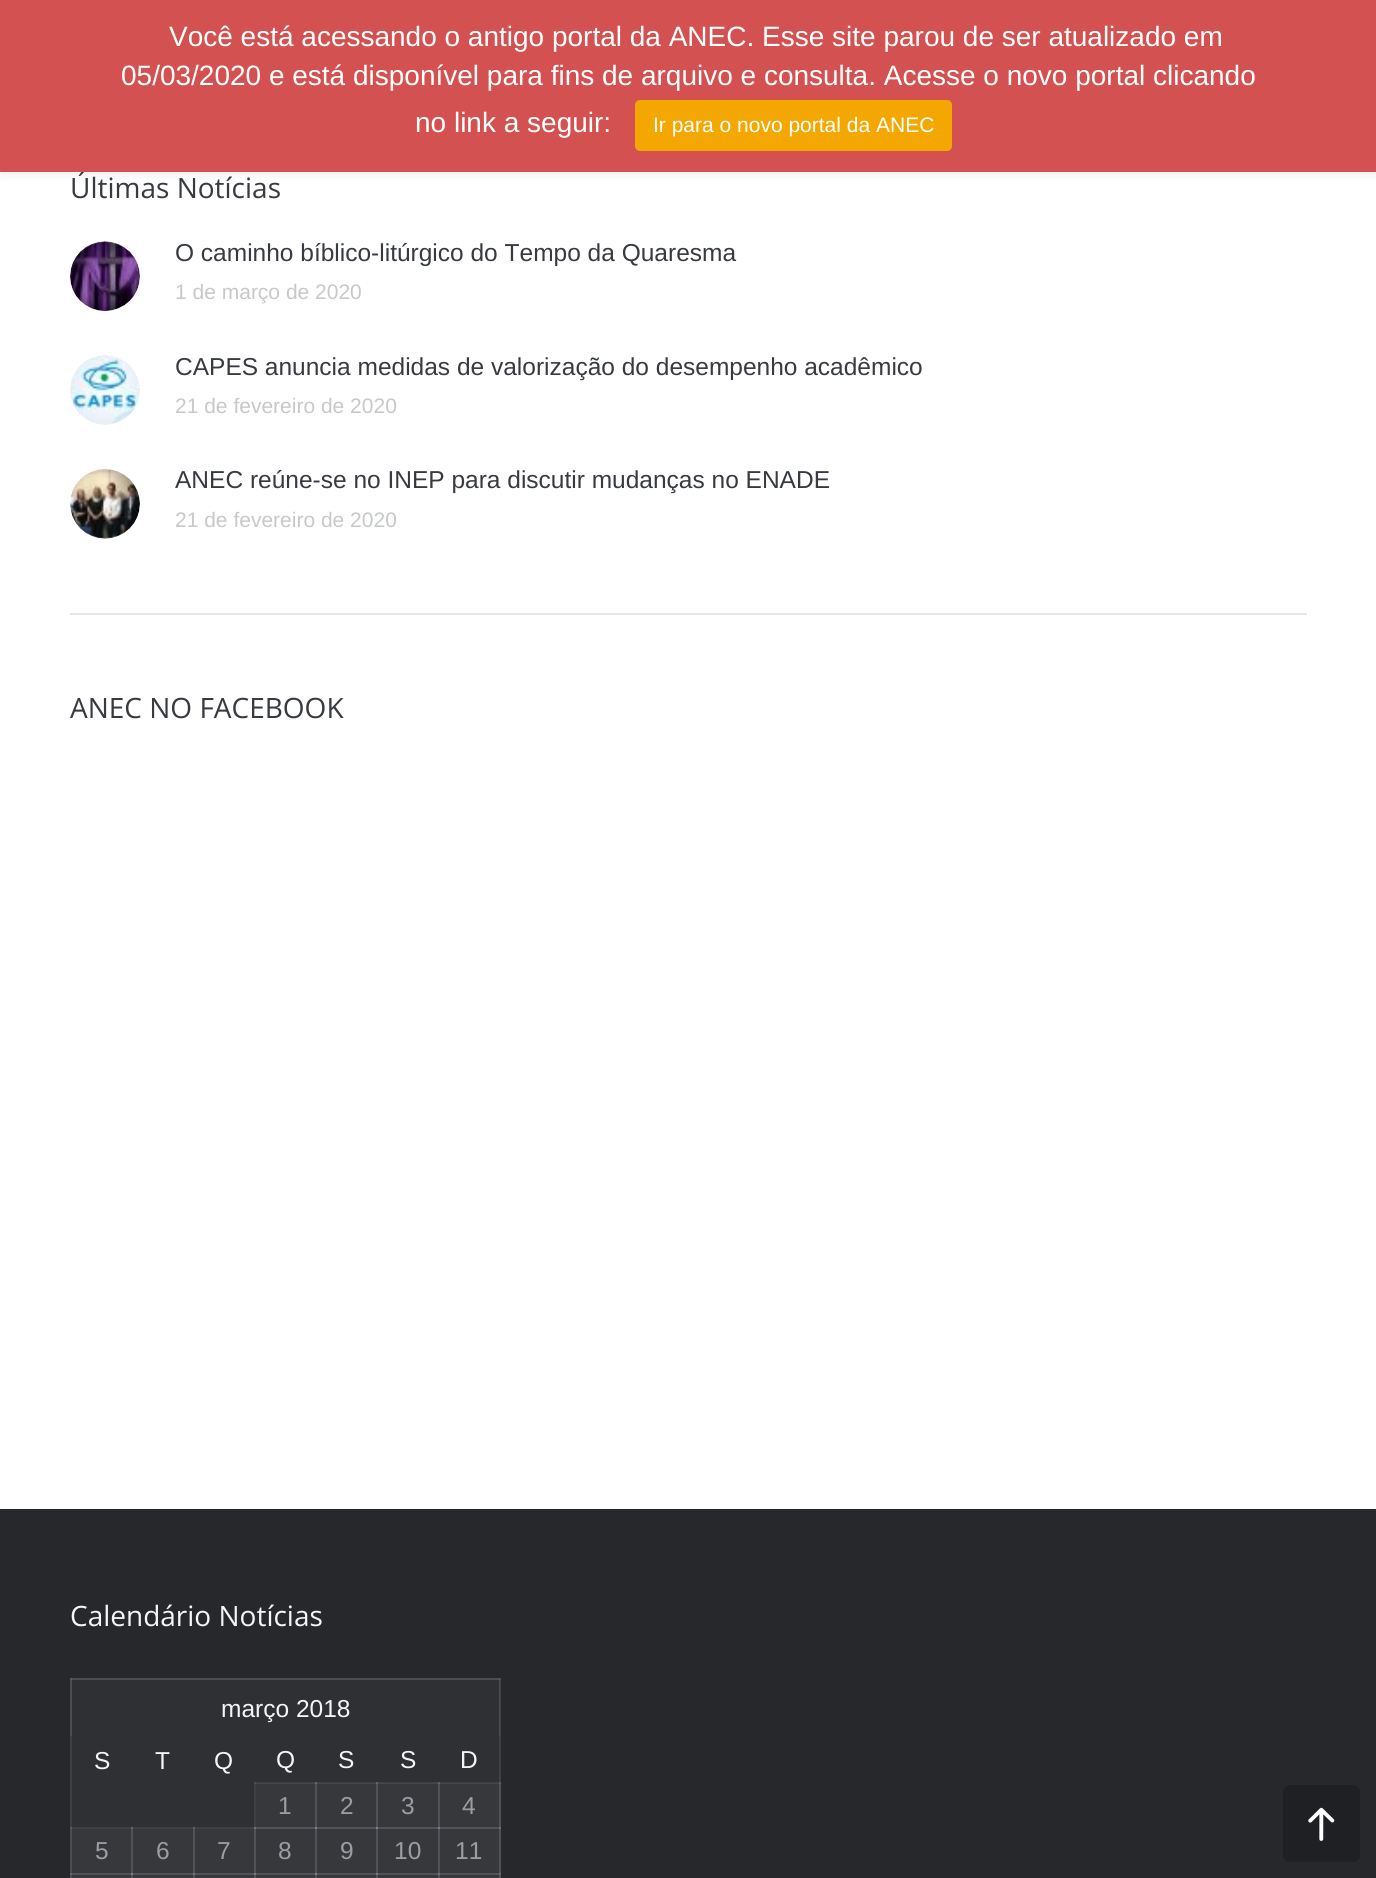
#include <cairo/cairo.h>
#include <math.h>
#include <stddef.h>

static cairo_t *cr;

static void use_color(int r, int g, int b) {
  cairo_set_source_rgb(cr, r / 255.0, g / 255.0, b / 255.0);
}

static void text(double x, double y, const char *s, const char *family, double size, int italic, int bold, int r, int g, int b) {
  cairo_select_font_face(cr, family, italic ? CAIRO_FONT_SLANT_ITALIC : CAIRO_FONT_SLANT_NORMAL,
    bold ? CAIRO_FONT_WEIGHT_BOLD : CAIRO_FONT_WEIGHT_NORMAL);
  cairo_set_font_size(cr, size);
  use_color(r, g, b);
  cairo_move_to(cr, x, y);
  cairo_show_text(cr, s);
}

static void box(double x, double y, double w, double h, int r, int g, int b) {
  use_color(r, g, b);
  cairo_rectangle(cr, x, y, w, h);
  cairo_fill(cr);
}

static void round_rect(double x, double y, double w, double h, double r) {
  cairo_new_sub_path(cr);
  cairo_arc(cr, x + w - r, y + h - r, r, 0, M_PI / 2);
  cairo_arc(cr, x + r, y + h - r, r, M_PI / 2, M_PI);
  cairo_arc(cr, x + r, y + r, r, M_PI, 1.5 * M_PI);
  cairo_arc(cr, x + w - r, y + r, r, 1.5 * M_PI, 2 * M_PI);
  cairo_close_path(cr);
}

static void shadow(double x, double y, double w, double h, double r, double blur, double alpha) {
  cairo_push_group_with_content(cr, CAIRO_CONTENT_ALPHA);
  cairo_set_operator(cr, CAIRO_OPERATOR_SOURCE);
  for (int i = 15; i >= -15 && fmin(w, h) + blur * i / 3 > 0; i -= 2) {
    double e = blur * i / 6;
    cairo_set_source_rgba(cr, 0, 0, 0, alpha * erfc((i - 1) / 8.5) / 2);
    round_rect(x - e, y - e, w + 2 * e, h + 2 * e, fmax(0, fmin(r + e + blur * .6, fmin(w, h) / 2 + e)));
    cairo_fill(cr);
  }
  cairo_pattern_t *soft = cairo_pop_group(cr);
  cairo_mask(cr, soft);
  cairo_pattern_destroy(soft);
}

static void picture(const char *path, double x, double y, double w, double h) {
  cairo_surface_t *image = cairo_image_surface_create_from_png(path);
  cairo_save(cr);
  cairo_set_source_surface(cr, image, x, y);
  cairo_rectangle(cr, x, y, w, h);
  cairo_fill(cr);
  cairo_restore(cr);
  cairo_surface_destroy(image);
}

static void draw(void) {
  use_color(255, 255, 255);
  cairo_paint(cr);
  use_color(0, 0, 0);
  shadow(0, 5, 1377, 172, 0, 3.5, 0.05);
  picture("img_01.png", 70, 241, 70, 71);
  picture("img_02.png", 70, 355, 70, 70);
  picture("img_03.png", 70, 468, 70, 71);
  box(70, 613, 1237, 2, 230, 230, 230);
  box(0, 1509, 1376, 369, 38, 40, 44);
  box(70, 1678, 431, 200, 46, 48, 52);
  use_color(62, 64, 69);
  cairo_new_path(cr);
  cairo_move_to(cr, 70, 1678);
  cairo_line_to(cr, 500, 1678);
  cairo_line_to(cr, 499, 1680);
  cairo_line_to(cr, 72, 1680);
  cairo_close_path(cr);
  cairo_fill(cr);
  cairo_set_source_rgba(cr, 0.608, 0.616, 0.635, 0.15);
  cairo_new_path(cr);
  cairo_move_to(cr, 500, 1678);
  cairo_line_to(cr, 500, 1736);
  cairo_line_to(cr, 499, 1736);
  cairo_line_to(cr, 499, 1680);
  cairo_close_path(cr);
  cairo_fill(cr);
  cairo_new_path(cr);
  cairo_move_to(cr, 70, 1736);
  cairo_line_to(cr, 70, 1678);
  cairo_line_to(cr, 72, 1680);
  cairo_line_to(cr, 72, 1736);
  cairo_close_path(cr);
  cairo_fill(cr);
  cairo_rectangle(cr, 70, 1678, 431, 2);
  cairo_fill(cr);
  box(256, 1783, 245, 46, 54, 56, 60);
  box(72, 1829, 429, 45, 54, 56, 60);
  box(72, 1874, 429, 4, 54, 56, 60);
  cairo_set_source_rgba(cr, 0.608, 0.616, 0.635, 0.15);
  cairo_rectangle(cr, 499, 1678, 2, 200);
  cairo_fill(cr);
  cairo_rectangle(cr, 70, 1678, 2, 200);
  cairo_fill(cr);
  cairo_rectangle(cr, 438, 1782, 63, 2);
  cairo_fill(cr);
  cairo_rectangle(cr, 438, 1827, 63, 2);
  cairo_fill(cr);
  cairo_rectangle(cr, 438, 1873, 63, 2);
  cairo_fill(cr);
  cairo_rectangle(cr, 499, 1873, 2, 5);
  cairo_fill(cr);
  cairo_rectangle(cr, 499, 1827, 2, 47);
  cairo_fill(cr);
  cairo_rectangle(cr, 499, 1782, 2, 47);
  cairo_fill(cr);
  cairo_rectangle(cr, 438, 1873, 2, 5);
  cairo_fill(cr);
  cairo_rectangle(cr, 376, 1873, 63, 2);
  cairo_fill(cr);
  cairo_rectangle(cr, 438, 1873, 2, 5);
  cairo_fill(cr);
  cairo_rectangle(cr, 438, 1873, 63, 2);
  cairo_fill(cr);
  cairo_rectangle(cr, 438, 1827, 2, 47);
  cairo_fill(cr);
  cairo_rectangle(cr, 376, 1827, 63, 2);
  cairo_fill(cr);
  cairo_rectangle(cr, 438, 1827, 2, 47);
  cairo_fill(cr);
  cairo_rectangle(cr, 438, 1827, 63, 2);
  cairo_fill(cr);
  cairo_rectangle(cr, 438, 1782, 2, 47);
  cairo_fill(cr);
  cairo_rectangle(cr, 376, 1782, 63, 2);
  cairo_fill(cr);
  cairo_rectangle(cr, 438, 1782, 2, 47);
  cairo_fill(cr);
  cairo_rectangle(cr, 376, 1873, 2, 5);
  cairo_fill(cr);
  cairo_rectangle(cr, 315, 1873, 63, 2);
  cairo_fill(cr);
  cairo_rectangle(cr, 376, 1873, 2, 5);
  cairo_fill(cr);
  cairo_rectangle(cr, 376, 1873, 63, 2);
  cairo_fill(cr);
  cairo_rectangle(cr, 376, 1827, 2, 47);
  cairo_fill(cr);
  cairo_rectangle(cr, 315, 1827, 63, 2);
  cairo_fill(cr);
  cairo_rectangle(cr, 376, 1827, 2, 47);
  cairo_fill(cr);
  cairo_rectangle(cr, 376, 1827, 63, 2);
  cairo_fill(cr);
  cairo_rectangle(cr, 376, 1782, 2, 47);
  cairo_fill(cr);
  cairo_rectangle(cr, 315, 1782, 63, 2);
  cairo_fill(cr);
  cairo_rectangle(cr, 376, 1782, 2, 47);
  cairo_fill(cr);
  cairo_rectangle(cr, 315, 1873, 2, 5);
  cairo_fill(cr);
  cairo_rectangle(cr, 254, 1873, 63, 2);
  cairo_fill(cr);
  cairo_rectangle(cr, 315, 1873, 2, 5);
  cairo_fill(cr);
  cairo_rectangle(cr, 315, 1873, 63, 2);
  cairo_fill(cr);
  cairo_rectangle(cr, 315, 1827, 2, 47);
  cairo_fill(cr);
  cairo_rectangle(cr, 254, 1827, 63, 2);
  cairo_fill(cr);
  cairo_rectangle(cr, 315, 1827, 2, 47);
  cairo_fill(cr);
  cairo_rectangle(cr, 315, 1827, 63, 2);
  cairo_fill(cr);
  cairo_rectangle(cr, 315, 1782, 2, 47);
  cairo_fill(cr);
  cairo_rectangle(cr, 254, 1782, 63, 2);
  cairo_fill(cr);
  cairo_rectangle(cr, 315, 1782, 2, 47);
  cairo_fill(cr);
  cairo_rectangle(cr, 254, 1873, 2, 5);
  cairo_fill(cr);
  cairo_rectangle(cr, 193, 1873, 63, 2);
  cairo_fill(cr);
  cairo_rectangle(cr, 254, 1873, 2, 5);
  cairo_fill(cr);
  cairo_rectangle(cr, 254, 1873, 63, 2);
  cairo_fill(cr);
  cairo_rectangle(cr, 254, 1827, 2, 47);
  cairo_fill(cr);
  cairo_rectangle(cr, 193, 1827, 63, 2);
  cairo_fill(cr);
  cairo_rectangle(cr, 254, 1827, 2, 47);
  cairo_fill(cr);
  cairo_rectangle(cr, 254, 1827, 63, 2);
  cairo_fill(cr);
  cairo_rectangle(cr, 254, 1782, 2, 47);
  cairo_fill(cr);
  cairo_rectangle(cr, 193, 1873, 2, 5);
  cairo_fill(cr);
  cairo_rectangle(cr, 131, 1873, 63, 2);
  cairo_fill(cr);
  cairo_rectangle(cr, 193, 1873, 2, 5);
  cairo_fill(cr);
  cairo_rectangle(cr, 193, 1873, 63, 2);
  cairo_fill(cr);
  cairo_rectangle(cr, 193, 1827, 2, 47);
  cairo_fill(cr);
  cairo_rectangle(cr, 131, 1827, 63, 2);
  cairo_fill(cr);
  cairo_rectangle(cr, 193, 1827, 2, 47);
  cairo_fill(cr);
  cairo_rectangle(cr, 131, 1873, 2, 5);
  cairo_fill(cr);
  cairo_rectangle(cr, 70, 1873, 63, 2);
  cairo_fill(cr);
  cairo_rectangle(cr, 131, 1873, 2, 5);
  cairo_fill(cr);
  cairo_rectangle(cr, 131, 1873, 63, 2);
  cairo_fill(cr);
  cairo_rectangle(cr, 131, 1827, 2, 47);
  cairo_fill(cr);
  cairo_rectangle(cr, 70, 1827, 63, 2);
  cairo_fill(cr);
  cairo_rectangle(cr, 131, 1827, 2, 47);
  cairo_fill(cr);
  cairo_rectangle(cr, 70, 1873, 2, 5);
  cairo_fill(cr);
  cairo_rectangle(cr, 70, 1873, 63, 2);
  cairo_fill(cr);
  cairo_rectangle(cr, 70, 1827, 2, 47);
  cairo_fill(cr);
  use_color(30, 32, 35);
  round_rect(1283, 1785, 77, 77, 7);
  cairo_fill(cr);
  picture("img_04.png", 1308, 1807, 27, 34);
  text(70, 198, "Últimas Notícias", "Open Sans", 28, 0, 0, 55, 58, 65);
  box(0, 0, 1376, 172, 211, 81, 81);
  use_color(244, 167, 0);
  round_rect(635, 100, 317, 51, 5);
  cairo_fill(cr);
  text(653, 132, "Ir para o novo portal da ANEC", "Liberation Sans", 21, 0, 0, 255, 255, 255);
  text(415, 132, "no link a seguir:", "Liberation Sans", 28, 0, 0, 255, 255, 255);
  text(121, 85, "05/03/2020 e está disponível para fins de arquivo e consulta. Acesse o novo portal clicando", "Liberation Sans", 28, 0, 0, 255, 255, 255);
  text(169, 46, "Você está acessando o antigo portal da ANEC. Esse site parou de ser atualizado em", "Liberation Sans", 28, 0, 0, 255, 255, 255);
  text(175, 261, "O caminho bíblico-litúrgico do Tempo da Quaresma", "Liberation Sans", 24.5, 0, 0, 55, 58, 65);
  text(175, 299, "1 de março de 2020", "Liberation Sans", 21, 0, 0, 198, 200, 202);
  text(175, 375, "CAPES anuncia medidas de valorização do desempenho acadêmico", "Liberation Sans", 24.5, 0, 0, 55, 58, 65);
  text(175, 413, "21 de fevereiro de 2020", "Liberation Sans", 21, 0, 0, 198, 200, 202);
  text(175, 488, "ANEC reúne-se no INEP para discutir mudanças no ENADE", "Liberation Sans", 24.5, 0, 0, 55, 58, 65);
  text(175, 527, "21 de fevereiro de 2020", "Liberation Sans", 21, 0, 0, 198, 200, 202);
  text(70, 718, "ANEC NO FACEBOOK", "Open Sans", 28, 0, 0, 55, 58, 65);
  text(70, 1626, "Calendário Notícias", "Open Sans", 28, 0, 0, 244, 245, 248);
  text(221, 1717, "março 2018", "Liberation Sans", 24.5, 0, 0, 244, 245, 248);
  text(94, 1769, "S", "Liberation Sans", 24.5, 0, 0, 244, 245, 248);
  text(155, 1769, "T", "Liberation Sans", 24.5, 0, 0, 244, 245, 248);
  text(214, 1769, "Q", "Liberation Sans", 24.5, 0, 0, 244, 245, 248);
  text(276, 1768, "Q", "Liberation Sans", 24.5, 0, 0, 244, 245, 248);
  text(338, 1768, "S", "Liberation Sans", 24.5, 0, 0, 244, 245, 248);
  text(400, 1768, "S", "Liberation Sans", 24.5, 0, 0, 244, 245, 248);
  text(460, 1768, "D", "Liberation Sans", 24.5, 0, 0, 244, 245, 248);
  text(278, 1814, "1", "Liberation Sans", 24.5, 0, 0, 155, 157, 162);
  text(340, 1814, "2", "Liberation Sans", 24.5, 0, 0, 155, 157, 162);
  text(401, 1814, "3", "Liberation Sans", 24.5, 0, 0, 155, 157, 162);
  text(462, 1814, "4", "Liberation Sans", 24.5, 0, 0, 155, 157, 162);
  text(95, 1859, "5", "Liberation Sans", 24.5, 0, 0, 155, 157, 162);
  text(156, 1859, "6", "Liberation Sans", 24.5, 0, 0, 155, 157, 162);
  text(217, 1859, "7", "Liberation Sans", 24.5, 0, 0, 155, 157, 162);
  text(278, 1859, "8", "Liberation Sans", 24.5, 0, 0, 155, 157, 162);
  text(340, 1859, "9", "Liberation Sans", 24.5, 0, 0, 155, 157, 162);
  text(394, 1859, "10", "Liberation Sans", 24.5, 0, 0, 155, 157, 162);
  text(455, 1859, "11", "Liberation Sans", 24.5, 0, 0, 155, 157, 162);
}

int main(void) {
  cairo_surface_t *surface = cairo_image_surface_create(CAIRO_FORMAT_RGB24, 1376, 1878);
  cr = cairo_create(surface);
  cairo_font_options_t *options = cairo_font_options_create();
  cairo_font_options_set_hint_metrics(options, CAIRO_HINT_METRICS_OFF);
  cairo_font_options_set_hint_style(options, CAIRO_HINT_STYLE_NONE);
  cairo_set_font_options(cr, options);
  cairo_set_miter_limit(cr, 4);
  draw();
  cairo_surface_write_to_png(surface, "out.png");
  cairo_font_options_destroy(options);
  cairo_destroy(cr);
  cairo_surface_destroy(surface);
  return 0;
}
